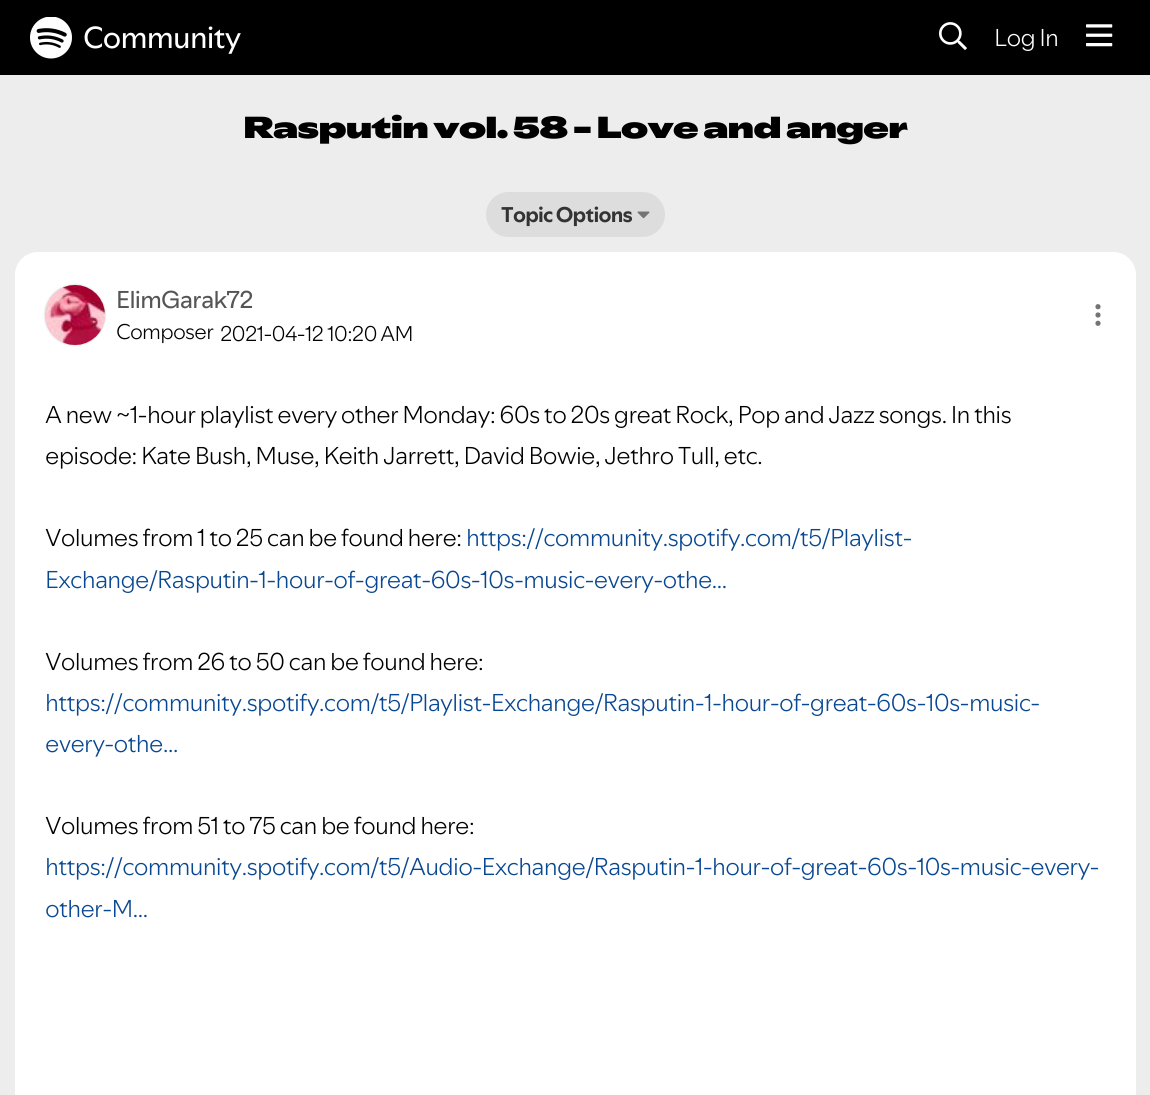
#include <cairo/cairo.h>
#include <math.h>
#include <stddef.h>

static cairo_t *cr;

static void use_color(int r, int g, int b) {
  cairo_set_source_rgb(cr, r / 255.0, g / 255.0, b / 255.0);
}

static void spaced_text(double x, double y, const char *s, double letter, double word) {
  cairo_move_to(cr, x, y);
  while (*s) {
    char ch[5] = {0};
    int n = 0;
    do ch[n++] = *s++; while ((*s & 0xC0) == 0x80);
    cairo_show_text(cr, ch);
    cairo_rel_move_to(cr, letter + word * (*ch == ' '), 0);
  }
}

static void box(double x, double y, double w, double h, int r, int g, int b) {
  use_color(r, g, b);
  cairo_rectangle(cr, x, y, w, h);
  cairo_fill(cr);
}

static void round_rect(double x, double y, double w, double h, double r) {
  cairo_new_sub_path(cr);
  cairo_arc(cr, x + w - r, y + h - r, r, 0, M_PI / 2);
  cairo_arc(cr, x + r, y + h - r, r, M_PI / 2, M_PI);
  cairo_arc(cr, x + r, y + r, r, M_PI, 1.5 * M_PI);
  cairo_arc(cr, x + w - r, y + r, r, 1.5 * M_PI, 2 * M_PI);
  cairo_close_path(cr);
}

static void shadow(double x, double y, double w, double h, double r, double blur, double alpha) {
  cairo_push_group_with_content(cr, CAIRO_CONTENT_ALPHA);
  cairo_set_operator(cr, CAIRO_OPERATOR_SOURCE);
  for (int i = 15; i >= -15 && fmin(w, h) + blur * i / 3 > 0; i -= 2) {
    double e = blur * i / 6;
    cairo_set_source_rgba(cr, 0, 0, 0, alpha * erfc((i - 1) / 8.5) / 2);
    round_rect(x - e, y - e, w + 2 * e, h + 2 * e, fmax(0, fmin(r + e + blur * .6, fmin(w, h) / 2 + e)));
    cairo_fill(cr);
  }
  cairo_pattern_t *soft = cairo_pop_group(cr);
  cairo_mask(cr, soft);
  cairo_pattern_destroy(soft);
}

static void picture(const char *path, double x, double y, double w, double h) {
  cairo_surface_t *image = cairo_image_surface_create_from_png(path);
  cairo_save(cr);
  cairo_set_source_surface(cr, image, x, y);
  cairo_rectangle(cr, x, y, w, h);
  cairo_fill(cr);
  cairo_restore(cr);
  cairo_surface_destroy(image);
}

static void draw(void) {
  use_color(237, 237, 237);
  cairo_paint(cr);
  box(0, 0, 1150, 75, 0, 0, 0);
  picture("img_01.png", 30, 17, 42, 42);
  picture("img_02.png", 939, 22, 28, 28);
  picture("img_03.png", 1086, 24, 27, 23);
  use_color(221, 221, 221);
  round_rect(486, 192, 179, 45, 22.5);
  cairo_fill(cr);
  picture("img_04.png", 637, 211, 13, 8);
  use_color(255, 255, 255);
  round_rect(15, 252, 1121, 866, 23);
  cairo_fill(cr);
  use_color(196, 196, 196);
  shadow(45, 285, 60, 60, 30, 1, 1);
  picture("img_05.png", 45, 285, 60, 60);
  use_color(116, 116, 116);
  cairo_arc(cr, 1098, 306.7, 2.6, 0, 2 * M_PI);
  cairo_fill(cr);
  cairo_arc(cr, 1098, 315, 2.6, 0, 2 * M_PI);
  cairo_fill(cr);
  cairo_arc(cr, 1098, 323.3, 2.6, 0, 2 * M_PI);
  cairo_fill(cr);
  cairo_select_font_face(cr, "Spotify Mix", CAIRO_FONT_SLANT_NORMAL, CAIRO_FONT_WEIGHT_NORMAL);
  cairo_set_font_size(cr, 30);
  use_color(255, 255, 255);
  spaced_text(83, 48, "Community", -0.75, 0);
  cairo_select_font_face(cr, "Spotify Mix Light", CAIRO_FONT_SLANT_NORMAL, CAIRO_FONT_WEIGHT_NORMAL);
  cairo_set_font_size(cr, 24);
  spaced_text(994, 46, "Log In", -0.75, 0);
  cairo_select_font_face(cr, "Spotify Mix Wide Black", CAIRO_FONT_SLANT_NORMAL, CAIRO_FONT_WEIGHT_NORMAL);
  cairo_set_font_size(cr, 30);
  use_color(0, 0, 0);
  spaced_text(243, 138, "Rasputin vol. 58 - Love and anger", -0.75, 0);
  cairo_select_font_face(cr, "Spotify Mix", CAIRO_FONT_SLANT_NORMAL, CAIRO_FONT_WEIGHT_BOLD);
  cairo_set_font_size(cr, 21);
  use_color(51, 51, 51);
  spaced_text(501, 222, "Topic Options", -0.75, 0);
  cairo_select_font_face(cr, "Spotify Mix", CAIRO_FONT_SLANT_NORMAL, CAIRO_FONT_WEIGHT_NORMAL);
  cairo_set_font_size(cr, 24);
  use_color(85, 85, 85);
  spaced_text(116, 308, "ElimGarak72", -0.75, 0);
  cairo_select_font_face(cr, "Spotify Mix Light", CAIRO_FONT_SLANT_NORMAL, CAIRO_FONT_WEIGHT_NORMAL);
  cairo_set_font_size(cr, 21);
  use_color(0, 0, 0);
  spaced_text(116, 339, "Composer", -0.75, 0);
  spaced_text(220, 341, "2021-04-12", -0.75, 0);
  spaced_text(327, 341, "10:20 AM", -0.75, 0);
  cairo_set_font_size(cr, 24);
  spaced_text(45, 423, "A new ~1-hour playlist every other Monday: 60s to 20s great Rock, Pop and Jazz songs. In this", -0.75, 0);
  spaced_text(45, 464, "episode: Kate Bush, Muse, Keith Jarrett, David Bowie, Jethro Tull, etc.", -0.75, 0);
  spaced_text(45, 546, "Volumes from 1 to 25 can be found here:", -0.75, 0);
  use_color(8, 71, 145);
  spaced_text(466, 546, "https://community.spotify.com/t5/Playlist-", -0.75, 0);
  spaced_text(45, 588, "Exchange/Rasputin-1-hour-of-great-60s-10s-music-every-othe...", -0.75, 0);
  use_color(0, 0, 0);
  spaced_text(45, 670, "Volumes from 26 to 50 can be found here:", -0.75, 0);
  use_color(8, 71, 145);
  spaced_text(45, 711, "https://community.spotify.com/t5/Playlist-Exchange/Rasputin-1-hour-of-great-60s-10s-music-", -0.75, 0);
  spaced_text(45, 752, "every-othe...", -0.75, 0);
  use_color(0, 0, 0);
  spaced_text(45, 834, "Volumes from 51 to 75 can be found here:", -0.75, 0);
  use_color(8, 71, 145);
  spaced_text(45, 875, "https://community.spotify.com/t5/Audio-Exchange/Rasputin-1-hour-of-great-60s-10s-music-every-", -0.75, 0);
  spaced_text(45, 917, "other-M...", -0.75, 0);
}

int main(void) {
  cairo_surface_t *surface = cairo_image_surface_create(CAIRO_FORMAT_RGB24, 1150, 1095);
  cr = cairo_create(surface);
  cairo_font_options_t *options = cairo_font_options_create();
  cairo_font_options_set_hint_metrics(options, CAIRO_HINT_METRICS_OFF);
  cairo_font_options_set_hint_style(options, CAIRO_HINT_STYLE_NONE);
  cairo_set_font_options(cr, options);
  cairo_set_miter_limit(cr, 4);
  draw();
  cairo_surface_write_to_png(surface, "out.png");
  cairo_font_options_destroy(options);
  cairo_destroy(cr);
  cairo_surface_destroy(surface);
  return 0;
}
